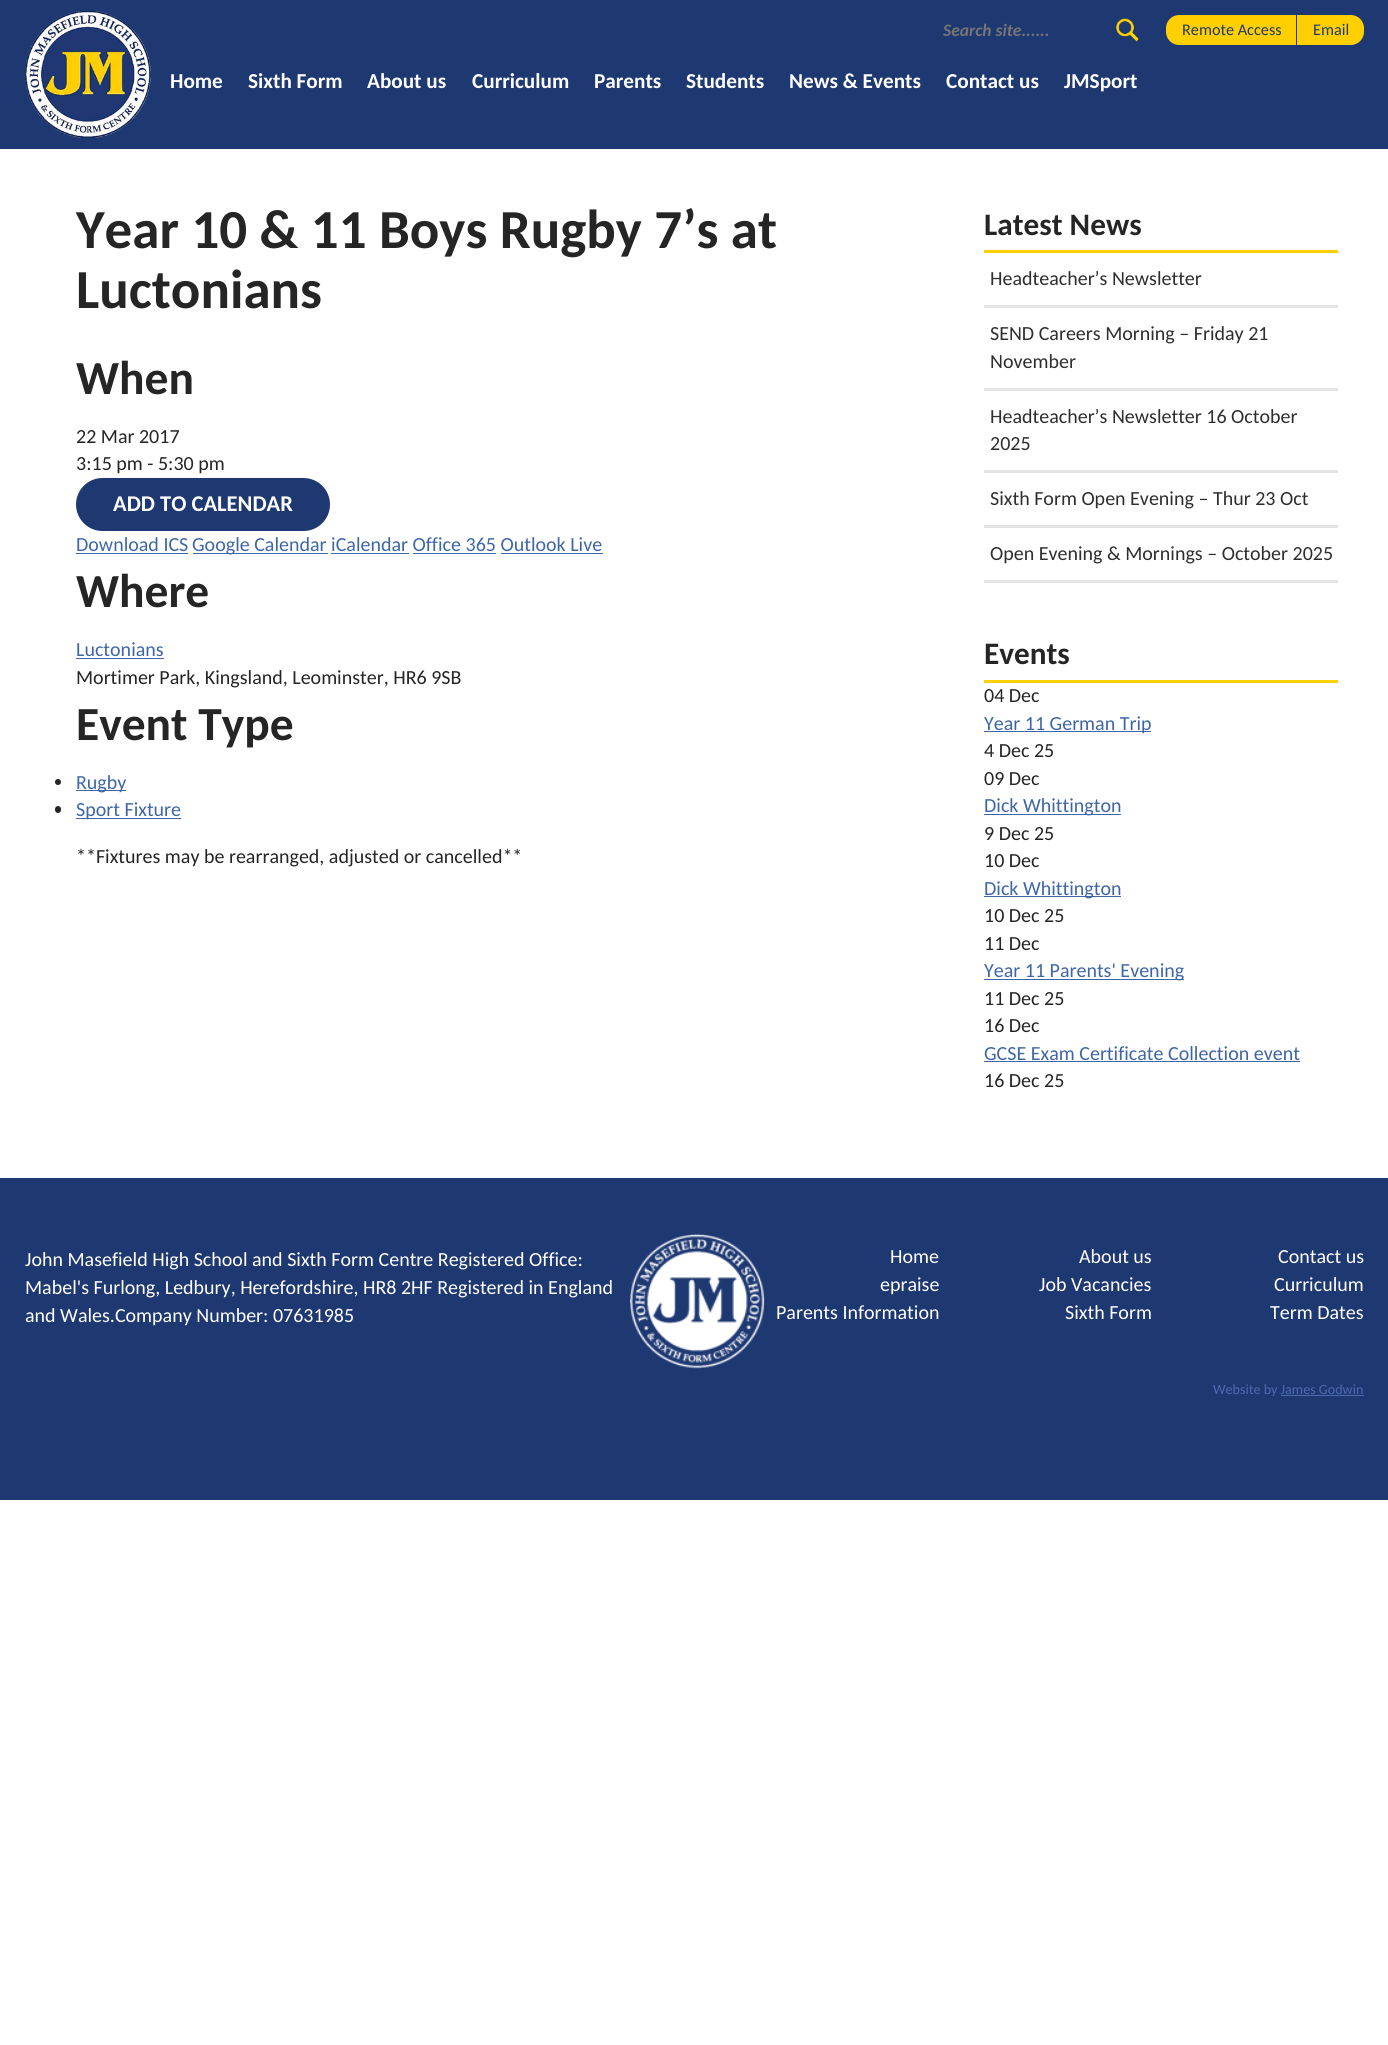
#include <cairo/cairo.h>
#include <math.h>
#include <stddef.h>

static cairo_t *cr;

static void use_color(int r, int g, int b) {
  cairo_set_source_rgb(cr, r / 255.0, g / 255.0, b / 255.0);
}

static void text(double x, double y, const char *s, const char *family, double size, int italic, int bold, int r, int g, int b) {
  cairo_select_font_face(cr, family, italic ? CAIRO_FONT_SLANT_ITALIC : CAIRO_FONT_SLANT_NORMAL,
    bold ? CAIRO_FONT_WEIGHT_BOLD : CAIRO_FONT_WEIGHT_NORMAL);
  cairo_set_font_size(cr, size);
  use_color(r, g, b);
  cairo_move_to(cr, x, y);
  cairo_show_text(cr, s);
}

static void box(double x, double y, double w, double h, int r, int g, int b) {
  use_color(r, g, b);
  cairo_rectangle(cr, x, y, w, h);
  cairo_fill(cr);
}

static void round_rect(double x, double y, double w, double h, double r) {
  cairo_new_sub_path(cr);
  cairo_arc(cr, x + w - r, y + h - r, r, 0, M_PI / 2);
  cairo_arc(cr, x + r, y + h - r, r, M_PI / 2, M_PI);
  cairo_arc(cr, x + r, y + r, r, M_PI, 1.5 * M_PI);
  cairo_arc(cr, x + w - r, y + r, r, 1.5 * M_PI, 2 * M_PI);
  cairo_close_path(cr);
}

static void picture(const char *path, double x, double y, double w, double h) {
  cairo_surface_t *image = cairo_image_surface_create_from_png(path);
  cairo_save(cr);
  cairo_set_source_surface(cr, image, x, y);
  cairo_rectangle(cr, x, y, w, h);
  cairo_fill(cr);
  cairo_restore(cr);
  cairo_surface_destroy(image);
}

static void draw(void) {
  use_color(255, 255, 255);
  cairo_paint(cr);
  box(0, 0, 1388, 149, 30, 56, 114);
  picture("img_01.png", 25, 11, 126, 127);
  picture("img_02.png", 1116, 18, 23, 24);
  use_color(255, 207, 1);
  cairo_new_path(cr);
  cairo_move_to(cr, 1179, 15);
  cairo_line_to(cr, 1298, 15);
  cairo_line_to(cr, 1298, 45);
  cairo_line_to(cr, 1179, 45);
  cairo_curve_to(cr, 1172, 45, 1166, 39, 1166, 32);
  cairo_line_to(cr, 1166, 28);
  cairo_curve_to(cr, 1166, 21, 1172, 15, 1179, 15);
  cairo_close_path(cr);
  cairo_fill(cr);
  box(1296, 15, 1, 30, 30, 56, 114);
  use_color(255, 207, 1);
  cairo_new_path(cr);
  cairo_move_to(cr, 1298, 15);
  cairo_line_to(cr, 1351, 15);
  cairo_curve_to(cr, 1358, 15, 1364, 21, 1364, 28);
  cairo_line_to(cr, 1364, 32);
  cairo_curve_to(cr, 1364, 39, 1358, 45, 1351, 45);
  cairo_line_to(cr, 1298, 45);
  cairo_close_path(cr);
  cairo_fill(cr);
  use_color(30, 56, 114);
  round_rect(76, 478, 254, 53, 26.5);
  cairo_fill(cr);
  box(76, 553, 112, 1, 62, 102, 167);
  box(193, 553, 135, 1, 62, 102, 167);
  box(331, 553, 78, 1, 62, 102, 167);
  box(413, 553, 83, 1, 62, 102, 167);
  box(501, 553, 102, 1, 62, 102, 167);
  box(76, 658, 88, 1, 62, 102, 167);
  use_color(37, 37, 37);
  cairo_arc(cr, 58, 782, 3, 0, 2 * M_PI);
  cairo_fill(cr);
  box(76, 790, 50, 1, 62, 102, 167);
  use_color(37, 37, 37);
  round_rect(55, 806, 6, 7, 3);
  cairo_fill(cr);
  box(76, 818, 105, 1, 62, 102, 167);
  box(984, 250, 354, 3, 255, 207, 1);
  box(984, 305, 354, 3, 228, 228, 228);
  box(984, 388, 354, 3, 228, 228, 228);
  box(984, 470, 354, 3, 228, 228, 228);
  box(984, 525, 354, 3, 228, 228, 228);
  box(984, 580, 354, 3, 228, 228, 228);
  box(984, 680, 354, 3, 255, 207, 1);
  box(984, 731, 167, 1, 62, 102, 167);
  box(984, 814, 137, 1, 62, 102, 167);
  box(984, 896, 137, 1, 62, 102, 167);
  box(984, 979, 200, 1, 62, 102, 167);
  box(984, 1061, 316, 1, 62, 102, 167);
  box(0, 1178, 1388, 322, 30, 56, 114);
  picture("img_03.png", 630, 1233, 135, 136);
  box(1281, 1395, 83, 1, 76, 106, 175);
  text(943, 36, "Search site......", "Carlito", 17.5, 1, 1, 117, 117, 117);
  text(1182, 35, "Remote Access", "Carlito", 16.25, 0, 0, 30, 56, 114);
  text(1313, 35, "Email", "Carlito", 16.25, 0, 0, 30, 56, 114);
  text(170, 88, "Home", "Carlito", 21.25, 0, 1, 255, 255, 255);
  text(248, 88, "Sixth Form", "Carlito", 21.25, 0, 1, 255, 255, 255);
  text(367, 88, "About us", "Carlito", 21.25, 0, 1, 255, 255, 255);
  text(472, 88, "Curriculum", "Carlito", 21.25, 0, 1, 255, 255, 255);
  text(594, 88, "Parents", "Carlito", 21.25, 0, 1, 255, 255, 255);
  text(686, 88, "Students", "Carlito", 21.25, 0, 1, 255, 255, 255);
  text(789, 88, "News & Events", "Carlito", 21.25, 0, 1, 255, 255, 255);
  text(946, 88, "Contact us", "Carlito", 21.25, 0, 1, 255, 255, 255);
  text(1064, 88, "JMSport", "Carlito", 21.25, 0, 1, 255, 255, 255);
  text(76, 248, "Year 10 & 11 Boys Rugby 7’s at", "Carlito", 55, 0, 1, 37, 37, 37);
  text(76, 308, "Luctonians", "Carlito", 55, 0, 1, 37, 37, 37);
  text(76, 394, "When", "Carlito", 47.5, 0, 1, 37, 37, 37);
  text(76, 443, "22 Mar 2017", "Carlito", 20, 0, 0, 37, 37, 37);
  text(76, 470, "3:15 pm - 5:30 pm", "Carlito", 20, 0, 0, 37, 37, 37);
  text(113, 511, "ADD TO CALENDAR", "Carlito", 22.5, 0, 1, 255, 255, 255);
  text(76, 551, "Download ICS", "Carlito", 20, 0, 0, 62, 102, 167);
  text(192, 551, "Google Calendar iCalendar Office 365 Outlook Live", "Carlito", 20, 0, 0, 62, 102, 167);
  text(76, 607, "Where", "Carlito", 47.5, 0, 1, 37, 37, 37);
  text(76, 656, "Luctonians", "Carlito", 20, 0, 0, 62, 102, 167);
  text(76, 684, "Mortimer Park, Kingsland, Leominster, HR6 9SB", "Carlito", 20, 0, 0, 37, 37, 37);
  text(76, 740, "Event Type", "Carlito", 47.5, 0, 1, 37, 37, 37);
  text(76, 789, "Rugby", "Carlito", 20, 0, 0, 62, 102, 167);
  text(76, 816, "Sport Fixture", "Carlito", 20, 0, 0, 62, 102, 167);
  text(76, 863, "**Fixtures may be rearranged, adjusted or cancelled**", "Carlito", 20, 0, 0, 37, 37, 37);
  text(984, 235, "Latest News", "Carlito", 31.25, 0, 1, 37, 37, 37);
  text(990, 285, "Headteacher’s Newsletter", "Carlito", 20, 0, 0, 47, 46, 46);
  text(990, 340, "SEND Careers Morning – Friday 21", "Carlito", 20, 0, 0, 47, 46, 46);
  text(990, 368, "November", "Carlito", 20, 0, 0, 47, 46, 46);
  text(990, 423, "Headteacher’s Newsletter 16 October", "Carlito", 20, 0, 0, 47, 46, 46);
  text(990, 450, "2025", "Carlito", 20, 0, 0, 47, 46, 46);
  text(990, 505, "Sixth Form Open Evening – Thur 23 Oct", "Carlito", 20, 0, 0, 47, 46, 46);
  text(990, 560, "Open Evening & Mornings – October 2025", "Carlito", 20, 0, 0, 47, 46, 46);
  text(984, 664, "Events", "Carlito", 31.25, 0, 1, 37, 37, 37);
  text(984, 702, "04 Dec", "Carlito", 20, 0, 0, 37, 37, 37);
  text(984, 730, "Year 11 German Trip", "Carlito", 20, 0, 0, 62, 102, 167);
  text(984, 757, "4 Dec 25", "Carlito", 20, 0, 0, 37, 37, 37);
  text(984, 785, "09 Dec", "Carlito", 20, 0, 0, 37, 37, 37);
  text(984, 812, "Dick Whittington", "Carlito", 20, 0, 0, 62, 102, 167);
  text(984, 840, "9 Dec 25", "Carlito", 20, 0, 0, 37, 37, 37);
  text(984, 867, "10 Dec", "Carlito", 20, 0, 0, 37, 37, 37);
  text(984, 895, "Dick Whittington", "Carlito", 20, 0, 0, 62, 102, 167);
  text(984, 922, "10 Dec 25", "Carlito", 20, 0, 0, 37, 37, 37);
  text(984, 950, "11 Dec", "Carlito", 20, 0, 0, 37, 37, 37);
  text(984, 977, "Year 11 Parents' Evening", "Carlito", 20, 0, 0, 62, 102, 167);
  text(984, 1005, "11 Dec 25", "Carlito", 20, 0, 0, 37, 37, 37);
  text(984, 1032, "16 Dec", "Carlito", 20, 0, 0, 37, 37, 37);
  text(984, 1060, "GCSE Exam Certificate Collection event", "Carlito", 20, 0, 0, 62, 102, 167);
  text(984, 1087, "16 Dec 25", "Carlito", 20, 0, 0, 37, 37, 37);
  text(25, 1266, "John Masefield High School and Sixth Form Centre Registered Office:", "Carlito", 20, 0, 0, 255, 255, 255);
  text(25, 1294, "Mabel's Furlong, Ledbury, Herefordshire, HR8 2HF Registered in England", "Carlito", 20, 0, 0, 255, 255, 255);
  text(25, 1322, "and Wales.Company Number: 07631985", "Carlito", 20, 0, 0, 255, 255, 255);
  text(890, 1263, "Home", "Carlito", 20, 0, 0, 255, 255, 255);
  text(1079, 1263, "About us", "Carlito", 20, 0, 0, 255, 255, 255);
  text(1278, 1263, "Contact us", "Carlito", 20, 0, 0, 255, 255, 255);
  text(880, 1291, "epraise", "Carlito", 20, 0, 0, 255, 255, 255);
  text(1039, 1291, "Job Vacancies", "Carlito", 20, 0, 0, 255, 255, 255);
  text(1274, 1291, "Curriculum", "Carlito", 20, 0, 0, 255, 255, 255);
  text(776, 1319, "Parents Information", "Carlito", 20, 0, 0, 255, 255, 255);
  text(1065, 1319, "Sixth Form", "Carlito", 20, 0, 0, 255, 255, 255);
  text(1270, 1319, "Term Dates", "Carlito", 20, 0, 0, 255, 255, 255);
  text(1213, 1394, "Website by James Godwin", "Carlito", 14.1, 0, 0, 76, 106, 175);
}

int main(void) {
  cairo_surface_t *surface = cairo_image_surface_create(CAIRO_FORMAT_RGB24, 1388, 2045);
  cr = cairo_create(surface);
  cairo_font_options_t *options = cairo_font_options_create();
  cairo_font_options_set_hint_metrics(options, CAIRO_HINT_METRICS_OFF);
  cairo_font_options_set_hint_style(options, CAIRO_HINT_STYLE_NONE);
  cairo_set_font_options(cr, options);
  cairo_set_miter_limit(cr, 4);
  draw();
  cairo_surface_write_to_png(surface, "out.png");
  cairo_font_options_destroy(options);
  cairo_destroy(cr);
  cairo_surface_destroy(surface);
  return 0;
}
